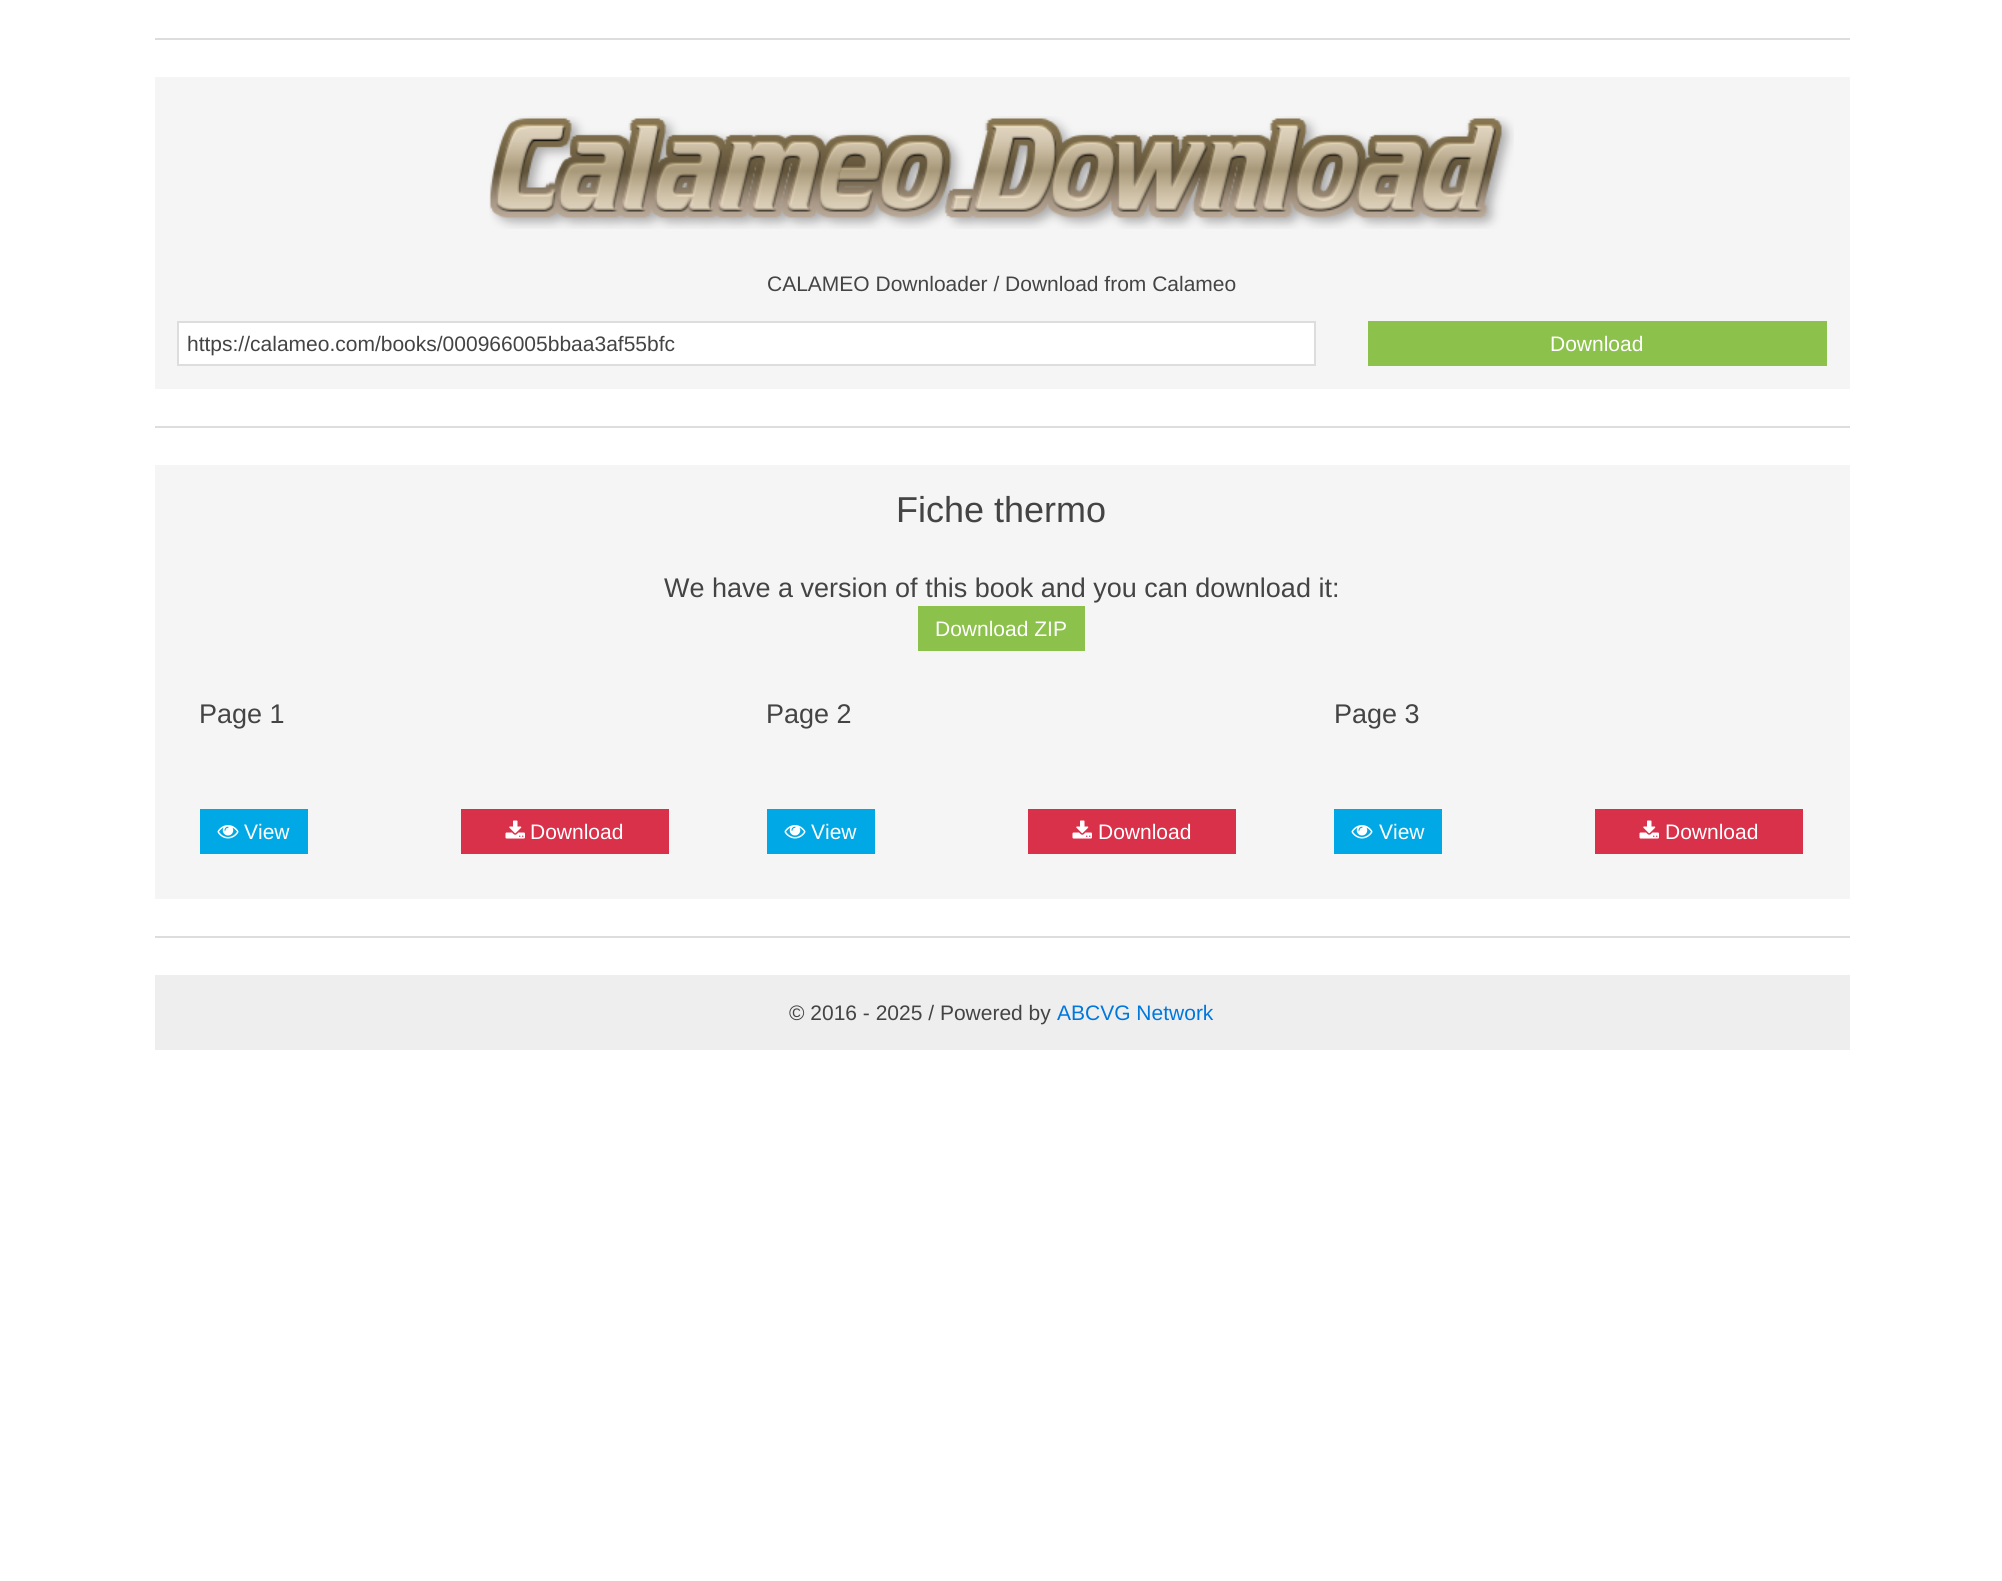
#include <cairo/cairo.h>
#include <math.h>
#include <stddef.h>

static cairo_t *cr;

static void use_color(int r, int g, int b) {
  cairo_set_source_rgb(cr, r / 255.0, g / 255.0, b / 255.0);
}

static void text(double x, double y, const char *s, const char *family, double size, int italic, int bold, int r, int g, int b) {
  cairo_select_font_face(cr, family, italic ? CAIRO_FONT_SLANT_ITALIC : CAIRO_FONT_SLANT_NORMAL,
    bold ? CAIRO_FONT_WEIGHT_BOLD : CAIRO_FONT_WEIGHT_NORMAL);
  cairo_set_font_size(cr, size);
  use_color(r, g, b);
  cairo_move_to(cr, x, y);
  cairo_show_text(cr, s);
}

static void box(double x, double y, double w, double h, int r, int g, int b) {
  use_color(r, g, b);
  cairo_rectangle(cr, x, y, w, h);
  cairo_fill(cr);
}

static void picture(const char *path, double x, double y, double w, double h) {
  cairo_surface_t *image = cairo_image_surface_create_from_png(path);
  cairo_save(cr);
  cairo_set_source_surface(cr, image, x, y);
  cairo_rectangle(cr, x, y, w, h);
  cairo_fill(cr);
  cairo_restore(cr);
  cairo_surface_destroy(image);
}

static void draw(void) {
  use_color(255, 255, 255);
  cairo_paint(cr);
  box(155, 38, 1695, 2, 221, 221, 221);
  box(155, 77, 1695, 312, 245, 245, 245);
  picture("img_01.png", 489, 116, 1025, 113);
  use_color(255, 255, 255);
  cairo_rectangle(cr, 178, 322, 1137, 43);
  cairo_fill_preserve(cr);
  use_color(221, 221, 221);
  cairo_stroke(cr);
  box(1368, 321, 459, 45, 140, 193, 76);
  box(155, 426, 1695, 2, 221, 221, 221);
  box(155, 465, 1695, 434, 245, 245, 245);
  box(918, 606, 167, 45, 140, 193, 76);
  box(200, 809, 108, 45, 0, 168, 230);
  picture("img_02.png", 217, 825, 22, 14);
  box(461, 809, 208, 45, 218, 49, 75);
  picture("img_03.png", 505, 820, 20, 19);
  box(767, 809, 108, 45, 0, 168, 230);
  picture("img_02.png", 784, 825, 22, 14);
  box(1028, 809, 208, 45, 218, 49, 75);
  picture("img_03.png", 1072, 820, 20, 19);
  box(1334, 809, 108, 45, 0, 168, 230);
  picture("img_02.png", 1351, 825, 22, 14);
  box(1595, 809, 208, 45, 218, 49, 75);
  picture("img_03.png", 1639, 820, 20, 19);
  box(155, 936, 1695, 2, 221, 221, 221);
  box(155, 975, 1695, 75, 238, 238, 238);
  text(767, 291, "CALAMEO Downloader / Download from Calameo", "Liberation Sans", 21, 0, 0, 68, 68, 68);
  text(187, 351, "https://calameo.com/books/000966005bbaa3af55bfc", "Liberation Sans", 21, 0, 0, 68, 68, 68);
  text(1550, 351, "Download", "Liberation Sans", 21, 0, 0, 255, 255, 255);
  text(896, 522, "Fiche thermo", "Liberation Sans", 36, 0, 0, 68, 68, 68);
  text(664, 597, "We have a version of this book and you can download it:", "Liberation Sans", 27, 0, 0, 68, 68, 68);
  text(935, 636, "Download ZIP", "Liberation Sans", 21, 0, 0, 255, 255, 255);
  text(199, 723, "Page 1", "Liberation Sans", 27, 0, 0, 68, 68, 68);
  text(244, 839, "View", "Liberation Sans", 21, 0, 0, 255, 255, 255);
  text(530, 839, "Download", "Liberation Sans", 21, 0, 0, 255, 255, 255);
  text(766, 723, "Page 2", "Liberation Sans", 27, 0, 0, 68, 68, 68);
  text(811, 839, "View", "Liberation Sans", 21, 0, 0, 255, 255, 255);
  text(1098, 839, "Download", "Liberation Sans", 21, 0, 0, 255, 255, 255);
  text(1334, 723, "Page 3", "Liberation Sans", 27, 0, 0, 68, 68, 68);
  text(1379, 839, "View", "Liberation Sans", 21, 0, 0, 255, 255, 255);
  text(1665, 839, "Download", "Liberation Sans", 21, 0, 0, 255, 255, 255);
  text(789, 1020, "© 2016 - 2025 / Powered by", "Liberation Sans", 21, 0, 0, 68, 68, 68);
  text(1057, 1020, "ABCVG Network", "Liberation Sans", 21, 0, 0, 0, 119, 221);
}

int main(void) {
  cairo_surface_t *surface = cairo_image_surface_create(CAIRO_FORMAT_RGB24, 2002, 1581);
  cr = cairo_create(surface);
  cairo_font_options_t *options = cairo_font_options_create();
  cairo_font_options_set_hint_metrics(options, CAIRO_HINT_METRICS_OFF);
  cairo_font_options_set_hint_style(options, CAIRO_HINT_STYLE_NONE);
  cairo_set_font_options(cr, options);
  cairo_set_miter_limit(cr, 4);
  draw();
  cairo_surface_write_to_png(surface, "out.png");
  cairo_font_options_destroy(options);
  cairo_destroy(cr);
  cairo_surface_destroy(surface);
  return 0;
}
